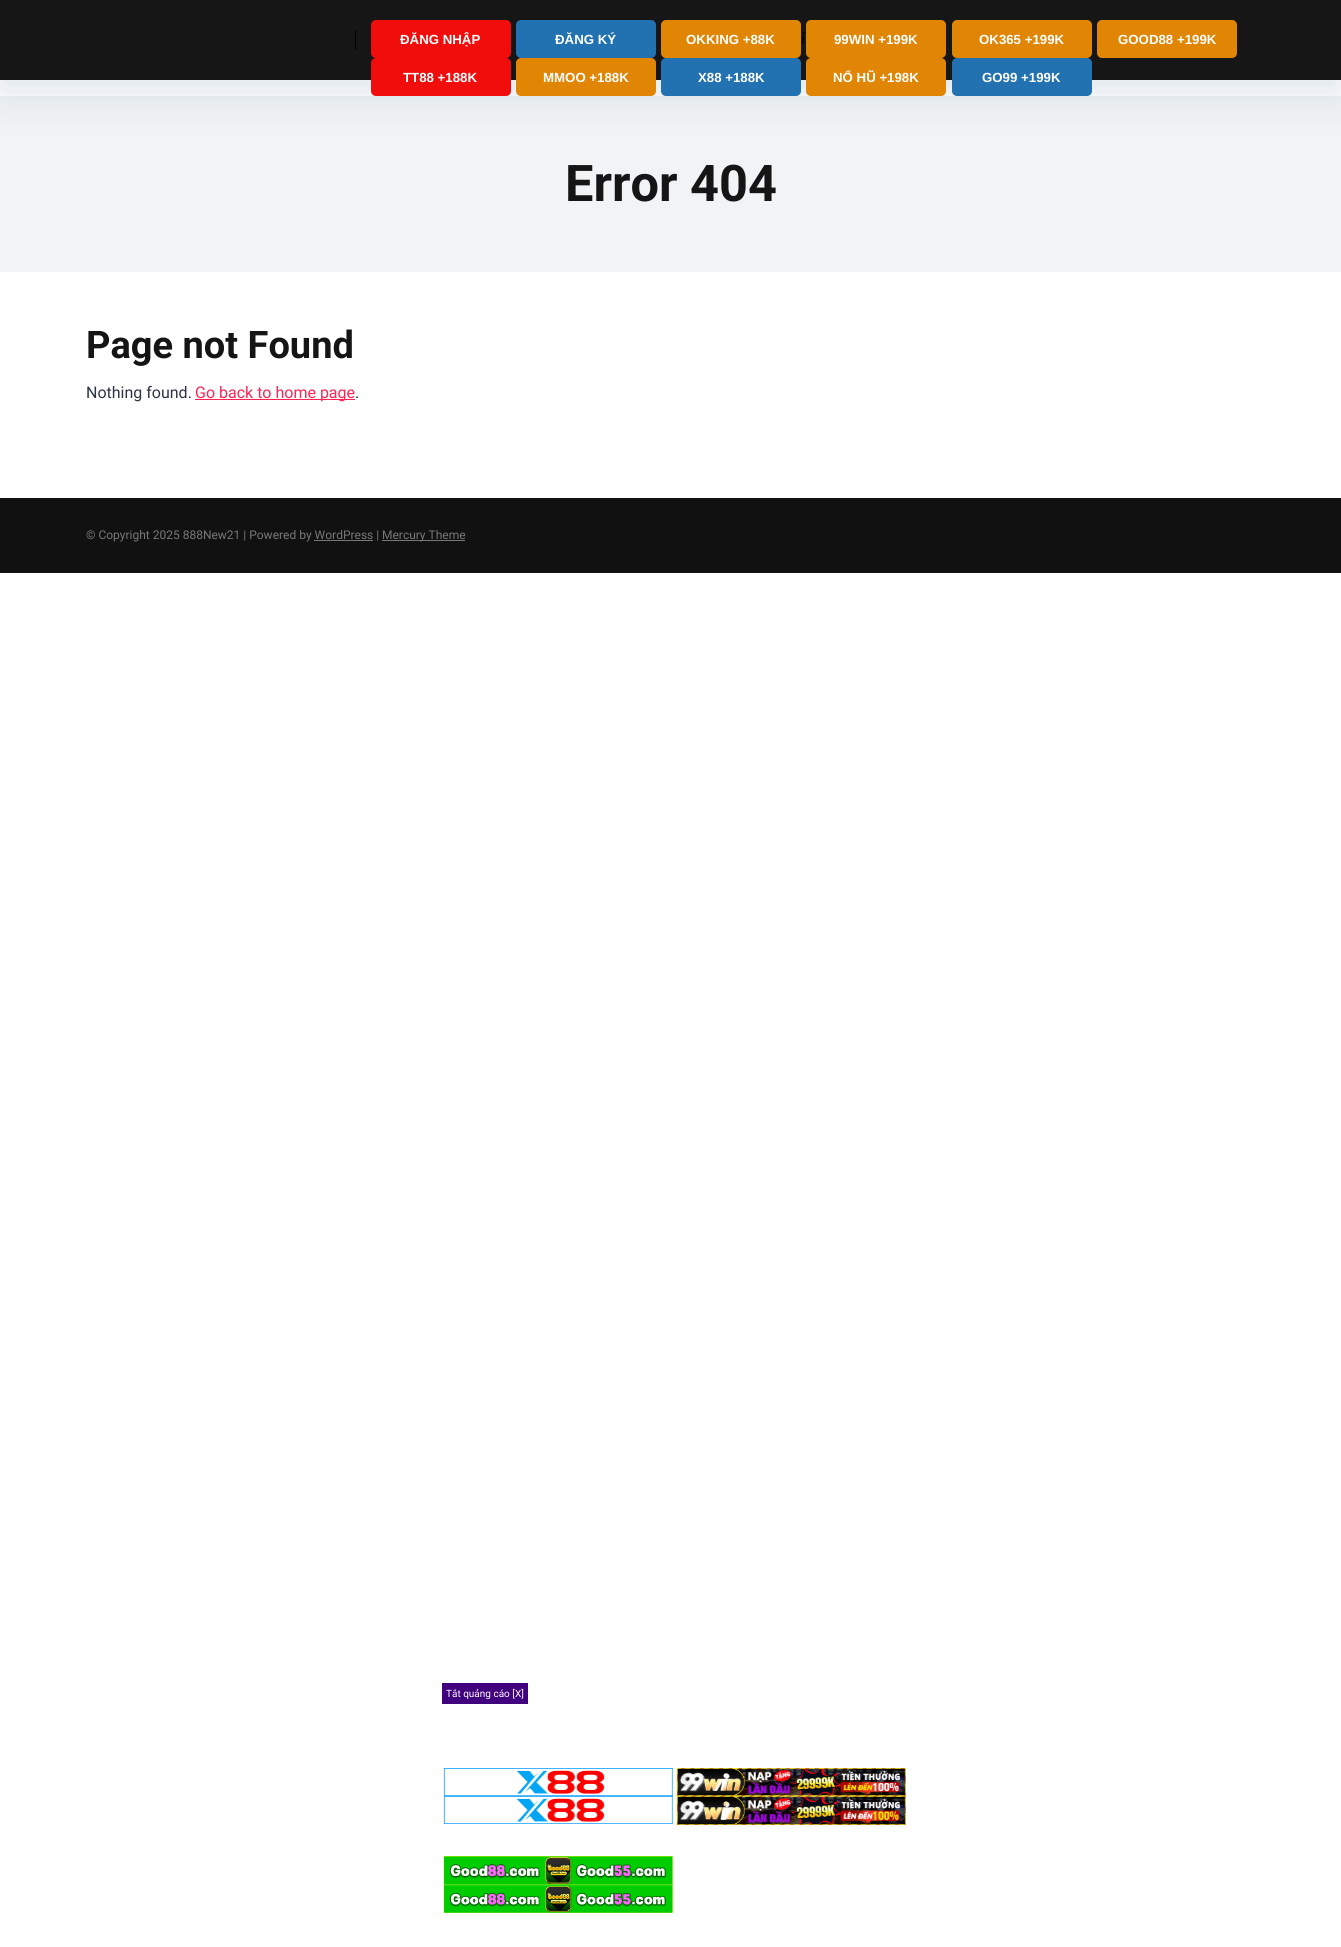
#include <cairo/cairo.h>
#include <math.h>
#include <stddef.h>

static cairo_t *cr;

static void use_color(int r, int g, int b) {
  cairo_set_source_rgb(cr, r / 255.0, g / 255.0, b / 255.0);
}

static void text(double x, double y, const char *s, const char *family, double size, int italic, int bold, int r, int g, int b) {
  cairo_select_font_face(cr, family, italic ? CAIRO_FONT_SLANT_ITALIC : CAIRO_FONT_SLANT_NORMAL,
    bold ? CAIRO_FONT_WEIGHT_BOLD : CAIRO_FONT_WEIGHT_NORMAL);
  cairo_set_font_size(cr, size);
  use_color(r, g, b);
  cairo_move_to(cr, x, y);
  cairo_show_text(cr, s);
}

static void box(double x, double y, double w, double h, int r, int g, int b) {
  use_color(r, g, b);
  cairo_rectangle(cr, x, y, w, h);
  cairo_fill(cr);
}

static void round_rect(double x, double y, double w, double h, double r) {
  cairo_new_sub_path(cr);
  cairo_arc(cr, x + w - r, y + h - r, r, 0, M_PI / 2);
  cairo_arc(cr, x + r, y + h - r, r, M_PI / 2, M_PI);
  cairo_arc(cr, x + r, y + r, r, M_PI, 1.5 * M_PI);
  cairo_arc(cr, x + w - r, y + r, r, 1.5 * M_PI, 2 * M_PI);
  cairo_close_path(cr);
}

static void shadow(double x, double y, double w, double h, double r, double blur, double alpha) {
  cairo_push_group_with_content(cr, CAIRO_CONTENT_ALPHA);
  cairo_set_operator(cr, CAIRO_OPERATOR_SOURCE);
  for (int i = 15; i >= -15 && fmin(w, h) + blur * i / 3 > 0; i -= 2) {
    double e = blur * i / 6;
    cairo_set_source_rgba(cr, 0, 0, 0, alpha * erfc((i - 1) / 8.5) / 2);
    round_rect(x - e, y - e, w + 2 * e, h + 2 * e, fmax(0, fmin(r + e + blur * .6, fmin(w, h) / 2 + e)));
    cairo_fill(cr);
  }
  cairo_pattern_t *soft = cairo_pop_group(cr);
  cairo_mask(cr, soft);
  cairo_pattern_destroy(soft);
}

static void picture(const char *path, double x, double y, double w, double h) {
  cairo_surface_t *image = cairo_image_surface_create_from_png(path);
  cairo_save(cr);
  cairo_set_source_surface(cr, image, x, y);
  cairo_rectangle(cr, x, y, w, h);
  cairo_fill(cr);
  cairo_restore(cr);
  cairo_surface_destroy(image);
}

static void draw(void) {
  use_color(255, 255, 255);
  cairo_paint(cr);
  box(0, 96, 1341, 176, 241, 243, 244);
  use_color(109, 141, 173);
  shadow(0, 10, 1341, 80, 0, 20, 0.25);
  box(0, 0, 1341, 80, 22, 22, 22);
  box(355, 30, 1, 20, 0, 0, 0);
  use_color(242, 13, 13);
  round_rect(371, 20, 140, 38, 5);
  cairo_fill(cr);
  use_color(34, 113, 177);
  round_rect(516, 20, 140, 38, 5);
  cairo_fill(cr);
  use_color(225, 133, 5);
  round_rect(661, 20, 140, 38, 5);
  cairo_fill(cr);
  round_rect(806, 20, 140, 38, 5);
  cairo_fill(cr);
  round_rect(952, 20, 140, 38, 5);
  cairo_fill(cr);
  round_rect(1097, 20, 140, 38, 5);
  cairo_fill(cr);
  use_color(242, 13, 13);
  round_rect(371, 58, 140, 38, 5);
  cairo_fill(cr);
  use_color(225, 133, 5);
  round_rect(516, 58, 140, 38, 5);
  cairo_fill(cr);
  use_color(34, 113, 177);
  round_rect(661, 58, 140, 38, 5);
  cairo_fill(cr);
  use_color(225, 133, 5);
  round_rect(806, 58, 140, 38, 5);
  cairo_fill(cr);
  use_color(34, 113, 177);
  round_rect(952, 58, 140, 38, 5);
  cairo_fill(cr);
  box(195, 399, 160, 1, 255, 36, 83);
  box(0, 498, 1341, 75, 17, 17, 17);
  box(382, 540, 83, 1, 119, 119, 119);
  box(314, 540, 59, 1, 119, 119, 119);
  box(442, 1683, 86, 21, 65, 0, 125);
  picture("img_01.png", 443, 1768, 230, 28);
  picture("img_02.png", 443, 1796, 230, 28);
  picture("img_03.png", 443, 1856, 230, 29);
  picture("img_04.png", 443, 1884, 230, 29);
  picture("img_05.png", 676, 1768, 230, 28);
  picture("img_06.png", 676, 1796, 230, 29);
  text(400, 44, "ĐĂNG NHẬP", "Liberation Sans", 13.25, 0, 1, 255, 255, 255);
  text(555, 44, "ĐĂNG KÝ", "Liberation Sans", 13.25, 0, 1, 255, 255, 255);
  text(686, 44, "OKKING +88K", "Liberation Sans", 13.25, 0, 1, 255, 255, 255);
  text(834, 44, "99WIN +199K", "Liberation Sans", 13.25, 0, 1, 255, 255, 255);
  text(979, 44, "OK365 +199K", "Liberation Sans", 13.25, 0, 1, 255, 255, 255);
  text(1118, 44, "GOOD88 +199K", "Liberation Sans", 13.25, 0, 1, 255, 255, 255);
  text(403, 82, "TT88 +188K", "Liberation Sans", 13.25, 0, 1, 255, 255, 255);
  text(543, 82, "MMOO +188K", "Liberation Sans", 13.25, 0, 1, 255, 255, 255);
  text(698, 82, "X88 +188K", "Liberation Sans", 13.25, 0, 1, 255, 255, 255);
  text(833, 82, "NỔ HŨ +198K", "Liberation Sans", 13.25, 0, 1, 255, 255, 255);
  text(982, 82, "GO99 +199K", "Liberation Sans", 13.25, 0, 1, 255, 255, 255);
  text(801, 44, "í", "Roboto", 16, 0, 0, 0, 0, 0);
  text(565, 201, "Error 404", "Roboto", 50.5, 0, 1, 21, 21, 21);
  text(86, 358, "Page not Found", "Roboto", 38, 0, 1, 21, 21, 21);
  text(86, 398, "Nothing found.", "Roboto", 16, 0, 0, 46, 50, 70);
  text(195, 398, "Go back to home page", "Roboto", 16, 0, 0, 255, 36, 83);
  text(355, 398, ".", "Roboto", 16, 0, 0, 46, 50, 70);
  text(86, 539, "© Copyright 2025 888New21 | Powered by WordPress |", "Roboto", 12, 0, 0, 119, 119, 119);
  text(382, 539, "Mercury Theme", "Roboto", 12, 0, 0, 119, 119, 119);
  text(446, 1697, "Tắt quảng cáo [X]", "Roboto", 10, 0, 0, 255, 255, 255);
}

int main(void) {
  cairo_surface_t *surface = cairo_image_surface_create(CAIRO_FORMAT_RGB24, 1341, 1947);
  cr = cairo_create(surface);
  cairo_font_options_t *options = cairo_font_options_create();
  cairo_font_options_set_hint_metrics(options, CAIRO_HINT_METRICS_OFF);
  cairo_font_options_set_hint_style(options, CAIRO_HINT_STYLE_NONE);
  cairo_set_font_options(cr, options);
  cairo_set_miter_limit(cr, 4);
  draw();
  cairo_surface_write_to_png(surface, "out.png");
  cairo_font_options_destroy(options);
  cairo_destroy(cr);
  cairo_surface_destroy(surface);
  return 0;
}
